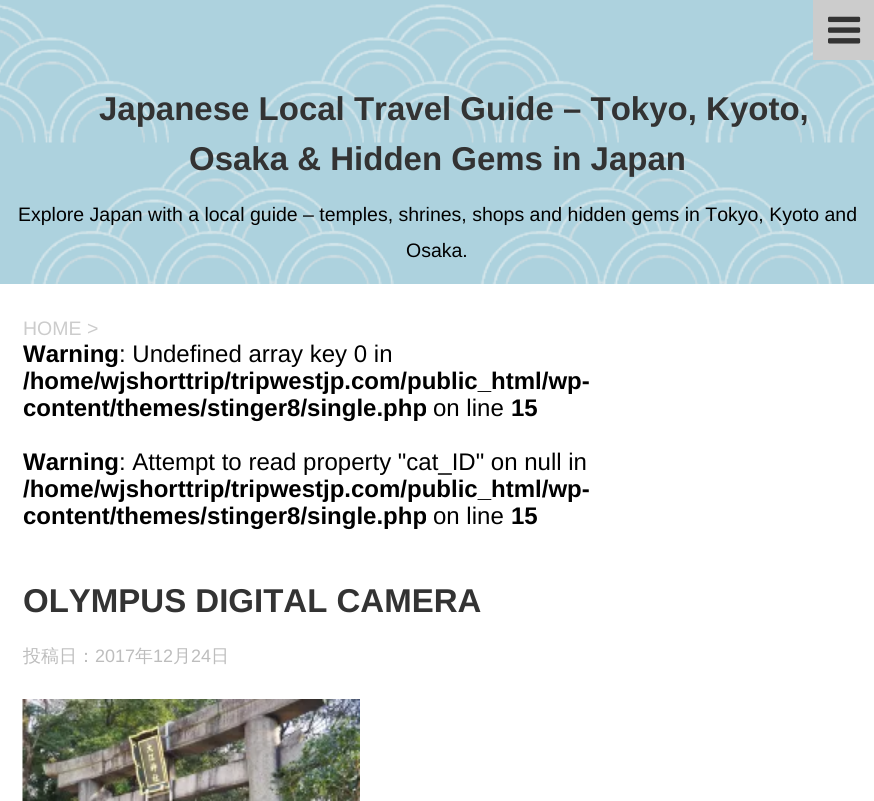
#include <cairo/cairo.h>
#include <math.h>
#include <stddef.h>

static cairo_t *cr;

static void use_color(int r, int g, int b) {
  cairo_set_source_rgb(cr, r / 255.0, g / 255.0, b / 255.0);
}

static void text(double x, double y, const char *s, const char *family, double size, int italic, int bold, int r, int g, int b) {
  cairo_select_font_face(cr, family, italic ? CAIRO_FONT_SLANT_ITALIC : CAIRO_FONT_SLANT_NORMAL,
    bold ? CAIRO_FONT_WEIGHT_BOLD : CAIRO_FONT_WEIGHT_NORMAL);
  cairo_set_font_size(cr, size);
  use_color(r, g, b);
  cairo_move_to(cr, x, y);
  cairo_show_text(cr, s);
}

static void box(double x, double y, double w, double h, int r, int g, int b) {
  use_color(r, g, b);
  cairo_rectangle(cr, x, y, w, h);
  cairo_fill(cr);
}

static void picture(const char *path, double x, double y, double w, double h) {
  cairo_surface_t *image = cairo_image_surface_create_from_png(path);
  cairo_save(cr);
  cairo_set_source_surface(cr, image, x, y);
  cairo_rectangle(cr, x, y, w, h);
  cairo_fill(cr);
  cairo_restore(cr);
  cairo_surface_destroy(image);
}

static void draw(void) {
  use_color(255, 255, 255);
  cairo_paint(cr);
  picture("img_01.png", 0, 0, 874, 284);
  box(813, 0, 61, 60, 204, 204, 204);
  picture("img_02.png", 828, 16, 33, 28);
  picture("img_03.png", 22, 699, 338, 102);
  text(99, 120, "Japanese Local Travel Guide – Tokyo, Kyoto,", "Liberation Sans", 33, 0, 1, 51, 51, 51);
  text(189, 170, "Osaka & Hidden Gems in Japan", "Liberation Sans", 33, 0, 1, 51, 51, 51);
  text(18, 221, "Explore Japan with a local guide – temples, shrines, shops and hidden gems in Tokyo, Kyoto and", "Liberation Sans", 19.5, 0, 0, 0, 0, 0);
  text(406, 257, "Osaka.", "Liberation Sans", 19.5, 0, 0, 0, 0, 0);
  text(23, 335, "HOME >", "Liberation Sans", 19.5, 0, 0, 204, 204, 204);
  text(23, 362, "Warning", "Liberation Sans", 24, 0, 1, 0, 0, 0);
  text(119, 362, ": Undefined array key 0 in", "Liberation Sans", 24, 0, 0, 0, 0, 0);
  text(23, 389, "/home/wjshorttrip/tripwestjp.com/public_html/wp-", "Liberation Sans", 24, 0, 1, 0, 0, 0);
  text(23, 416, "content/themes/stinger8/single.php", "Liberation Sans", 24, 0, 1, 0, 0, 0);
  text(433, 416, "on line", "Liberation Sans", 24, 0, 0, 0, 0, 0);
  text(511, 416, "15", "Liberation Sans", 24, 0, 1, 0, 0, 0);
  text(23, 470, "Warning", "Liberation Sans", 24, 0, 1, 0, 0, 0);
  text(119, 470, ": Attempt to read property \"cat_ID\" on null in", "Liberation Sans", 24, 0, 0, 0, 0, 0);
  text(23, 497, "/home/wjshorttrip/tripwestjp.com/public_html/wp-", "Liberation Sans", 24, 0, 1, 0, 0, 0);
  text(23, 524, "content/themes/stinger8/single.php", "Liberation Sans", 24, 0, 1, 0, 0, 0);
  text(433, 524, "on line", "Liberation Sans", 24, 0, 0, 0, 0, 0);
  text(511, 524, "15", "Liberation Sans", 24, 0, 1, 0, 0, 0);
  text(23, 612, "OLYMPUS DIGITAL CAMERA", "Liberation Sans", 33, 0, 1, 51, 51, 51);
  text(23, 662, "投稿日：", "WenQuanYi Zen Hei Medium", 18, 0, 0, 189, 189, 189);
  text(95, 662, "2017", "Liberation Sans", 18, 0, 0, 189, 189, 189);
  text(135, 662, "年", "WenQuanYi Zen Hei Medium", 18, 0, 0, 189, 189, 189);
  text(153, 662, "12", "Liberation Sans", 18, 0, 0, 189, 189, 189);
  text(173, 662, "月", "WenQuanYi Zen Hei Medium", 18, 0, 0, 189, 189, 189);
  text(191, 662, "24", "Liberation Sans", 18, 0, 0, 189, 189, 189);
  text(211, 662, "日", "WenQuanYi Zen Hei Medium", 18, 0, 0, 189, 189, 189);
}

int main(void) {
  cairo_surface_t *surface = cairo_image_surface_create(CAIRO_FORMAT_RGB24, 874, 801);
  cr = cairo_create(surface);
  cairo_font_options_t *options = cairo_font_options_create();
  cairo_font_options_set_hint_metrics(options, CAIRO_HINT_METRICS_OFF);
  cairo_font_options_set_hint_style(options, CAIRO_HINT_STYLE_NONE);
  cairo_set_font_options(cr, options);
  cairo_set_miter_limit(cr, 4);
  draw();
  cairo_surface_write_to_png(surface, "out.png");
  cairo_font_options_destroy(options);
  cairo_destroy(cr);
  cairo_surface_destroy(surface);
  return 0;
}
